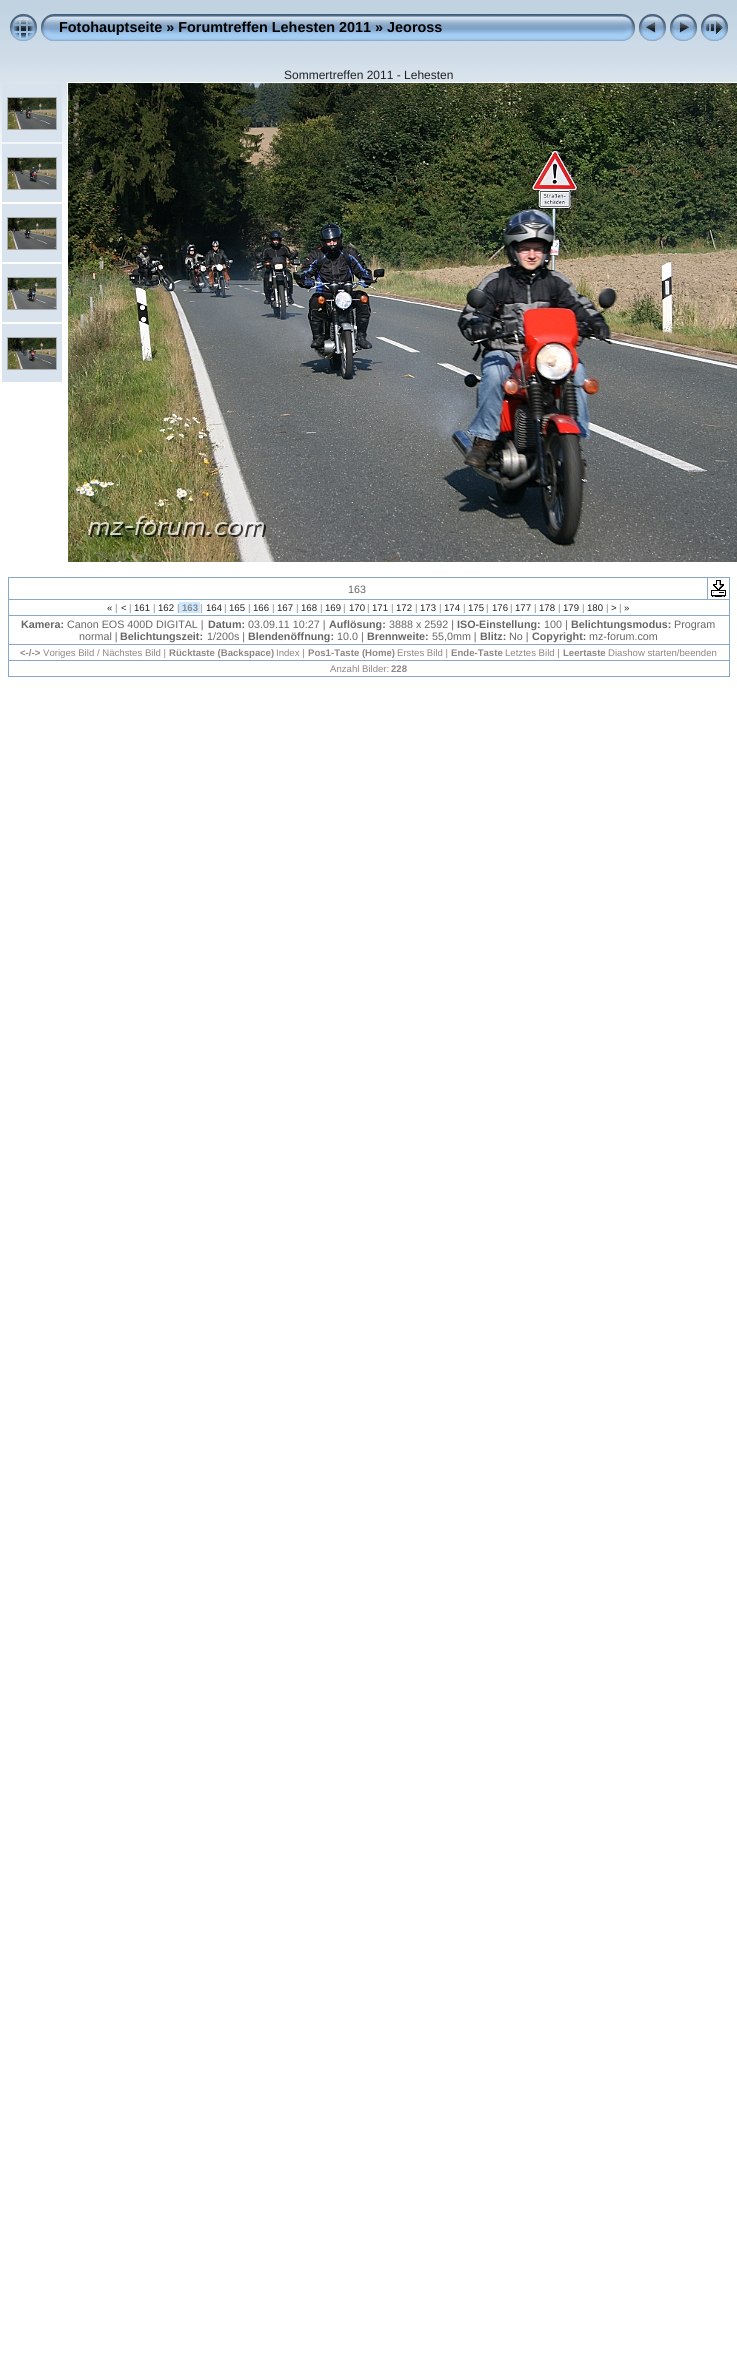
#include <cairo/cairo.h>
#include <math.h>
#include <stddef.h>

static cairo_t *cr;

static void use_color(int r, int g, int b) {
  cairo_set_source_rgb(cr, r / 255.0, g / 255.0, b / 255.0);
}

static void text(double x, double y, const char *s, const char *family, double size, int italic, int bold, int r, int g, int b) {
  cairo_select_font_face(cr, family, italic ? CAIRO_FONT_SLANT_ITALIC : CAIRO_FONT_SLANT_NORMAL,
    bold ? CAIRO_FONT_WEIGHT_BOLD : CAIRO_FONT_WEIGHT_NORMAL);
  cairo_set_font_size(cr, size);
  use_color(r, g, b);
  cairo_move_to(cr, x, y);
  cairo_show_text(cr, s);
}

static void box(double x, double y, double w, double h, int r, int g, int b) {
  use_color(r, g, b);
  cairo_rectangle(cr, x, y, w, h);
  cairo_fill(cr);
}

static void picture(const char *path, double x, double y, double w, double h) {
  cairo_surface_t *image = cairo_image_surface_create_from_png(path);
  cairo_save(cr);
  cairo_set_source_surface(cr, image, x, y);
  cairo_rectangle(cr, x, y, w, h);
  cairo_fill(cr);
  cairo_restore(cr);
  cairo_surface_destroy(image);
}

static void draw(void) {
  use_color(255, 255, 255);
  cairo_paint(cr);
  picture("img_01.png", 0, 0, 737, 178);
  picture("img_02.png", 10, 14, 27, 27);
  picture("img_03.png", 41, 14, 18, 27);
  picture("img_04.png", 59, 14, 558, 27);
  picture("img_05.png", 617, 14, 18, 27);
  picture("img_06.png", 639, 14, 27, 27);
  picture("img_07.png", 670, 14, 27, 27);
  picture("img_08.png", 701, 14, 27, 27);
  box(2, 84, 60, 58, 216, 227, 237);
  cairo_rectangle(cr, 7.5, 97.5, 49, 32);
  use_color(170, 170, 170);
  cairo_set_line_width(cr, 1);
  cairo_stroke(cr);
  picture("img_09.png", 8, 98, 48, 31);
  box(2, 144, 60, 58, 216, 227, 237);
  cairo_rectangle(cr, 7.5, 157.5, 49, 32);
  use_color(170, 170, 170);
  cairo_stroke(cr);
  picture("img_10.png", 8, 158, 48, 31);
  box(2, 204, 60, 58, 216, 227, 237);
  cairo_rectangle(cr, 7.5, 217.5, 49, 32);
  use_color(170, 170, 170);
  cairo_stroke(cr);
  picture("img_11.png", 8, 218, 48, 31);
  box(2, 264, 60, 58, 216, 227, 237);
  cairo_rectangle(cr, 7.5, 277.5, 49, 32);
  use_color(170, 170, 170);
  cairo_stroke(cr);
  picture("img_12.png", 8, 278, 48, 31);
  box(2, 324, 60, 58, 216, 227, 237);
  cairo_rectangle(cr, 7.5, 337.5, 49, 32);
  use_color(170, 170, 170);
  cairo_stroke(cr);
  picture("img_13.png", 8, 338, 48, 31);
  cairo_rectangle(cr, 67.5, 82.5, 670, 480);
  use_color(255, 255, 255);
  cairo_stroke(cr);
  picture("img_14.png", 68, 83, 669, 479);
  box(8, 577, 722, 1, 136, 168, 202);
  box(729, 577, 1, 100, 136, 168, 202);
  box(8, 676, 722, 1, 136, 168, 202);
  box(8, 577, 1, 100, 136, 168, 202);
  box(8, 599, 722, 1, 136, 168, 202);
  box(707, 577, 1, 23, 136, 168, 202);
  picture("img_15.png", 711, 580, 15, 17);
  box(179, 602, 21, 11, 204, 232, 255);
  box(8, 615, 722, 1, 136, 168, 202);
  box(8, 644, 722, 1, 136, 168, 202);
  box(8, 660, 722, 1, 136, 168, 202);
  text(59, 32, "Fotohauptseite » Forumtreffen Lehesten 2011 » Jeoross", "Liberation Sans", 14.4, 0, 1, 0, 0, 0);
  text(284, 79, "Sommertreffen 2011 - Lehesten", "Liberation Sans", 12, 0, 0, 34, 34, 34);
  text(348, 593, "163", "Liberation Sans", 10.75, 0, 0, 102, 102, 102);
  text(107, 611, "«", "Liberation Sans", 9.6, 0, 0, 34, 34, 34);
  text(115, 611, "|", "Liberation Sans", 9.6, 0, 0, 136, 136, 136);
  text(121, 611, "<", "Liberation Sans", 9.6, 0, 0, 34, 34, 34);
  text(129, 611, "|", "Liberation Sans", 9.6, 0, 0, 136, 136, 136);
  text(134, 611, "161", "Liberation Sans", 9.6, 0, 0, 34, 34, 34);
  text(153, 611, "|", "Liberation Sans", 9.6, 0, 0, 136, 136, 136);
  text(158, 611, "162", "Liberation Sans", 9.6, 0, 0, 34, 34, 34);
  text(177, 611, "|", "Liberation Sans", 9.6, 0, 0, 136, 136, 136);
  text(182, 611, "163", "Liberation Sans", 9.6, 0, 1, 136, 136, 136);
  text(200, 611, "|", "Liberation Sans", 9.6, 0, 0, 136, 136, 136);
  text(206, 611, "164", "Liberation Sans", 9.6, 0, 0, 34, 34, 34);
  text(224, 611, "|", "Liberation Sans", 9.6, 0, 0, 136, 136, 136);
  text(229, 611, "165", "Liberation Sans", 9.6, 0, 0, 34, 34, 34);
  text(248, 611, "|", "Liberation Sans", 9.6, 0, 0, 136, 136, 136);
  text(253, 611, "166", "Liberation Sans", 9.6, 0, 0, 34, 34, 34);
  text(272, 611, "|", "Liberation Sans", 9.6, 0, 0, 136, 136, 136);
  text(277, 611, "167", "Liberation Sans", 9.6, 0, 0, 34, 34, 34);
  text(296, 611, "|", "Liberation Sans", 9.6, 0, 0, 136, 136, 136);
  text(301, 611, "168", "Liberation Sans", 9.6, 0, 0, 34, 34, 34);
  text(320, 611, "|", "Liberation Sans", 9.6, 0, 0, 136, 136, 136);
  text(325, 611, "169", "Liberation Sans", 9.6, 0, 0, 34, 34, 34);
  text(343, 611, "|", "Liberation Sans", 9.6, 0, 0, 136, 136, 136);
  text(349, 611, "170", "Liberation Sans", 9.6, 0, 0, 34, 34, 34);
  text(367, 611, "|", "Liberation Sans", 9.6, 0, 0, 136, 136, 136);
  text(372, 611, "171", "Liberation Sans", 9.6, 0, 0, 34, 34, 34);
  text(391, 611, "|", "Liberation Sans", 9.6, 0, 0, 136, 136, 136);
  text(396, 611, "172", "Liberation Sans", 9.6, 0, 0, 34, 34, 34);
  text(415, 611, "|", "Liberation Sans", 9.6, 0, 0, 136, 136, 136);
  text(420, 611, "173", "Liberation Sans", 9.6, 0, 0, 34, 34, 34);
  text(439, 611, "|", "Liberation Sans", 9.6, 0, 0, 136, 136, 136);
  text(444, 611, "174", "Liberation Sans", 9.6, 0, 0, 34, 34, 34);
  text(463, 611, "|", "Liberation Sans", 9.6, 0, 0, 136, 136, 136);
  text(468, 611, "175", "Liberation Sans", 9.6, 0, 0, 34, 34, 34);
  text(486, 611, "|", "Liberation Sans", 9.6, 0, 0, 136, 136, 136);
  text(492, 611, "176", "Liberation Sans", 9.6, 0, 0, 34, 34, 34);
  text(510, 611, "|", "Liberation Sans", 9.6, 0, 0, 136, 136, 136);
  text(515, 611, "177", "Liberation Sans", 9.6, 0, 0, 34, 34, 34);
  text(534, 611, "|", "Liberation Sans", 9.6, 0, 0, 136, 136, 136);
  text(539, 611, "178", "Liberation Sans", 9.6, 0, 0, 34, 34, 34);
  text(558, 611, "|", "Liberation Sans", 9.6, 0, 0, 136, 136, 136);
  text(563, 611, "179", "Liberation Sans", 9.6, 0, 0, 34, 34, 34);
  text(582, 611, "|", "Liberation Sans", 9.6, 0, 0, 136, 136, 136);
  text(587, 611, "180", "Liberation Sans", 9.6, 0, 0, 34, 34, 34);
  text(606, 611, "|", "Liberation Sans", 9.6, 0, 0, 136, 136, 136);
  text(611, 611, ">", "Liberation Sans", 9.6, 0, 0, 34, 34, 34);
  text(619, 611, "|", "Liberation Sans", 9.6, 0, 0, 136, 136, 136);
  text(624, 611, "»", "Liberation Sans", 9.6, 0, 0, 34, 34, 34);
  text(21, 628, "Kamera:", "Liberation Sans", 10.75, 0, 1, 102, 102, 102);
  text(67, 628, "Canon EOS 400D DIGITAL |", "Liberation Sans", 10.75, 0, 0, 102, 102, 102);
  text(208, 628, "Datum:", "Liberation Sans", 10.75, 0, 1, 102, 102, 102);
  text(248, 628, "03.09.11 10:27 |", "Liberation Sans", 10.75, 0, 0, 102, 102, 102);
  text(329, 628, "Auflösung:", "Liberation Sans", 10.75, 0, 1, 102, 102, 102);
  text(389, 628, "3888 x 2592 |", "Liberation Sans", 10.75, 0, 0, 102, 102, 102);
  text(457, 628, "ISO-Einstellung:", "Liberation Sans", 10.75, 0, 1, 102, 102, 102);
  text(544, 628, "100 |", "Liberation Sans", 10.75, 0, 0, 102, 102, 102);
  text(571, 628, "Belichtungsmodus:", "Liberation Sans", 10.75, 0, 1, 102, 102, 102);
  text(674, 628, "Program", "Liberation Sans", 10.75, 0, 0, 102, 102, 102);
  text(79, 640, "normal |", "Liberation Sans", 10.75, 0, 0, 102, 102, 102);
  text(120, 640, "Belichtungszeit:", "Liberation Sans", 10.75, 0, 1, 102, 102, 102);
  text(207, 640, "1/200s |", "Liberation Sans", 10.75, 0, 0, 102, 102, 102);
  text(248, 640, "Blendenöffnung:", "Liberation Sans", 10.75, 0, 1, 102, 102, 102);
  text(337, 640, "10.0 |", "Liberation Sans", 10.75, 0, 0, 102, 102, 102);
  text(367, 640, "Brennweite:", "Liberation Sans", 10.75, 0, 1, 102, 102, 102);
  text(432, 640, "55,0mm |", "Liberation Sans", 10.75, 0, 0, 102, 102, 102);
  text(480, 640, "Blitz:", "Liberation Sans", 10.75, 0, 1, 102, 102, 102);
  text(509, 640, "No |", "Liberation Sans", 10.75, 0, 0, 102, 102, 102);
  text(532, 640, "Copyright:", "Liberation Sans", 10.75, 0, 1, 102, 102, 102);
  text(589, 640, "mz-forum.com", "Liberation Sans", 10.75, 0, 0, 102, 102, 102);
  text(20, 656, "<-/->", "Liberation Sans", 9.6, 0, 1, 136, 136, 136);
  text(43, 656, "Voriges Bild / Nächstes Bild |", "Liberation Sans", 9.6, 0, 0, 136, 136, 136);
  text(169, 656, "Rücktaste (Backspace)", "Liberation Sans", 9.6, 0, 1, 136, 136, 136);
  text(276, 656, "Index |", "Liberation Sans", 9.6, 0, 0, 136, 136, 136);
  text(308, 656, "Pos1-Taste (Home)", "Liberation Sans", 9.6, 0, 1, 136, 136, 136);
  text(397, 656, "Erstes Bild |", "Liberation Sans", 9.6, 0, 0, 136, 136, 136);
  text(451, 656, "Ende-Taste", "Liberation Sans", 9.6, 0, 1, 136, 136, 136);
  text(505, 656, "Letztes Bild |", "Liberation Sans", 9.6, 0, 0, 136, 136, 136);
  text(563, 656, "Leertaste", "Liberation Sans", 9.6, 0, 1, 136, 136, 136);
  text(608, 656, "Diashow starten/beenden", "Liberation Sans", 9.6, 0, 0, 136, 136, 136);
  text(330, 672, "Anzahl Bilder:", "Liberation Sans", 9.6, 0, 0, 136, 136, 136);
  text(391, 672, "228", "Liberation Sans", 9.6, 0, 1, 136, 136, 136);
}

int main(void) {
  cairo_surface_t *surface = cairo_image_surface_create(CAIRO_FORMAT_RGB24, 737, 2372);
  cr = cairo_create(surface);
  cairo_font_options_t *options = cairo_font_options_create();
  cairo_font_options_set_hint_metrics(options, CAIRO_HINT_METRICS_OFF);
  cairo_font_options_set_hint_style(options, CAIRO_HINT_STYLE_NONE);
  cairo_set_font_options(cr, options);
  cairo_set_miter_limit(cr, 4);
  draw();
  cairo_surface_write_to_png(surface, "out.png");
  cairo_font_options_destroy(options);
  cairo_destroy(cr);
  cairo_surface_destroy(surface);
  return 0;
}
